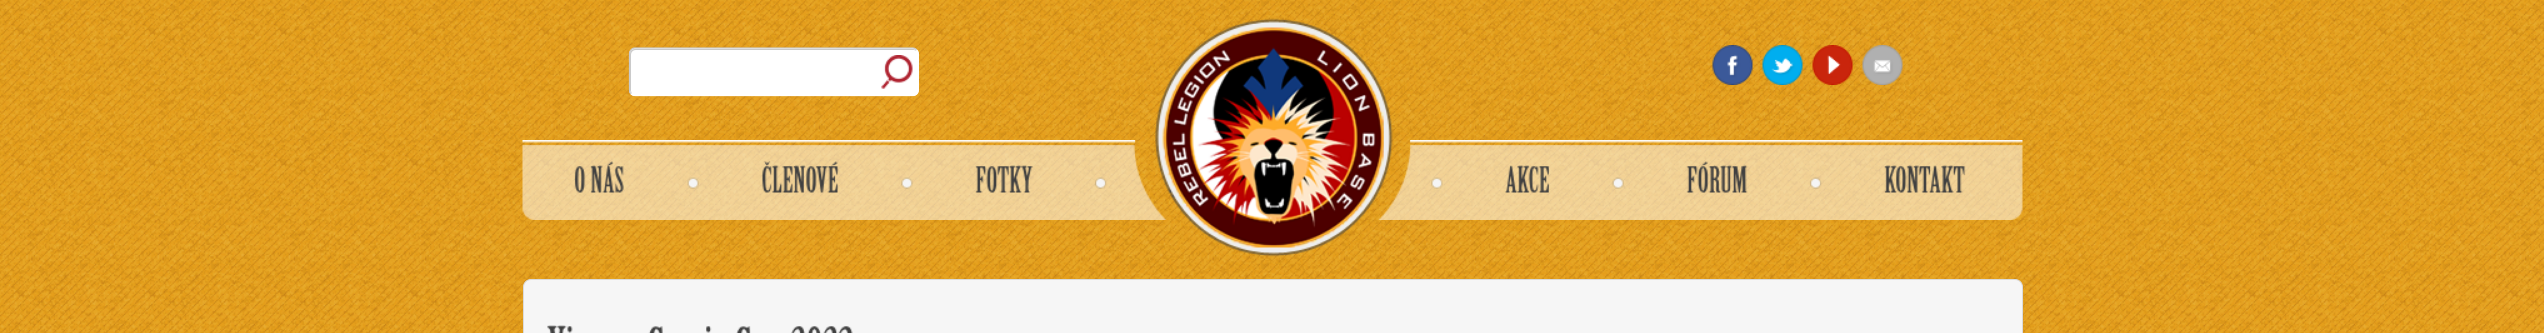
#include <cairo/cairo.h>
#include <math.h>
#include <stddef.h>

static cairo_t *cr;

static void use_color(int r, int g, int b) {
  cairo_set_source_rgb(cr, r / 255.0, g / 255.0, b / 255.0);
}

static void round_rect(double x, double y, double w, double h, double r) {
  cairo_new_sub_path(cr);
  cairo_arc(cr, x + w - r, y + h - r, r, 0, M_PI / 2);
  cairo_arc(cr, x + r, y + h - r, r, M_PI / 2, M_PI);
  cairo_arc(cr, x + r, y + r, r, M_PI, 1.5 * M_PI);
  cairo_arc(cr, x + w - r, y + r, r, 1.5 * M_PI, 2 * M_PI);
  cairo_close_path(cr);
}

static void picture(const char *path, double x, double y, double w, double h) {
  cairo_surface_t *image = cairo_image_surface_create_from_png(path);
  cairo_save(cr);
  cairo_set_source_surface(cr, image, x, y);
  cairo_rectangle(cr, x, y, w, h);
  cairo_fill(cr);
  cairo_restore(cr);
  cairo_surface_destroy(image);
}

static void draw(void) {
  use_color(255, 255, 255);
  cairo_paint(cr);
  picture("img_01.png", 0, 0, 2544, 333);
  picture("img_08.png", 522, 140, 1501, 80);
  picture("img_17.png", 1168, 188, 9, 10);
  picture("img_02.png", 1155, 18, 238, 239);
  use_color(255, 255, 255);
  round_rect(629, 48, 290, 48, 6);
  cairo_fill(cr);
  use_color(202, 202, 202);
  cairo_new_path(cr);
  cairo_move_to(cr, 636, 50);
  cairo_line_to(cr, 914, 50);
  cairo_line_to(cr, 917, 51);
  cairo_curve_to(cr, 916, 50, 914, 49, 913, 49);
  cairo_line_to(cr, 635, 49);
  cairo_curve_to(cr, 632, 49, 630, 51, 630, 54);
  cairo_line_to(cr, 630, 90);
  cairo_curve_to(cr, 630, 91, 631, 93, 632, 94);
  cairo_line_to(cr, 631, 91);
  cairo_line_to(cr, 631, 55);
  cairo_curve_to(cr, 631, 52, 633, 50, 636, 50);
  cairo_close_path(cr);
  cairo_fill(cr);
  cairo_new_path(cr);
  cairo_move_to(cr, 916.5, 50);
  cairo_curve_to(cr, 917.5, 51, 918, 52.5, 918, 54);
  cairo_line_to(cr, 918, 90);
  cairo_curve_to(cr, 918, 91.5, 917.5, 93, 916.5, 94);
  cairo_curve_to(cr, 915.5, 95, 914, 95.5, 912.5, 95.5);
  cairo_line_to(cr, 635, 95.5);
  cairo_curve_to(cr, 633.5, 95.5, 632, 95, 631, 94);
  use_color(255, 255, 255);
  cairo_set_line_width(cr, 1.2);
  cairo_stroke(cr);
  cairo_new_path(cr);
  cairo_move_to(cr, 631, 94);
  cairo_curve_to(cr, 630, 93, 629.5, 91.5, 629.5, 90);
  cairo_line_to(cr, 629.5, 54);
  cairo_curve_to(cr, 629.5, 52.5, 630, 51, 631, 50);
  cairo_curve_to(cr, 632, 48.5, 633.5, 48, 635, 48);
  cairo_line_to(cr, 912.5, 48);
  cairo_curve_to(cr, 914, 48, 915.5, 48.5, 916.5, 50);
  use_color(202, 202, 202);
  cairo_stroke(cr);
  picture("img_03.png", 881, 55, 32, 34);
  picture("img_04.png", 1712, 45, 41, 40);
  picture("img_05.png", 1762, 45, 41, 40);
  picture("img_06.png", 1812, 45, 41, 40);
  picture("img_07.png", 1862, 45, 41, 40);
  picture("img_09.png", 687, 177, 12, 12);
  picture("img_10.png", 574, 166, 12, 27);
  picture("img_11.png", 590, 161, 34, 32);
  picture("img_12.png", 901, 177, 12, 12);
  picture("img_13.png", 762, 161, 77, 32);
  picture("img_14.png", 1095, 177, 12, 12);
  picture("img_15.png", 975, 165, 58, 28);
  picture("img_16.png", 1431, 177, 12, 12);
  picture("img_18.png", 1612, 177, 12, 12);
  picture("img_19.png", 1505, 165, 45, 28);
  picture("img_20.png", 1810, 177, 12, 12);
  picture("img_21.png", 1686, 161, 62, 32);
  picture("img_22.png", 1883, 165, 83, 28);
  use_color(246, 246, 246);
  round_rect(523.5, 279.5, 1499, 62, 7.5);
  cairo_fill_preserve(cr);
  use_color(219, 219, 219);
  cairo_set_line_width(cr, 1);
  cairo_stroke(cr);
  picture("img_23.png", 547, 325, 26, 8);
  picture("img_24.png", 648, 326, 64, 7);
  picture("img_25.png", 736, 326, 15, 7);
  picture("img_26.png", 791, 326, 62, 7);
}

int main(void) {
  cairo_surface_t *surface = cairo_image_surface_create(CAIRO_FORMAT_RGB24, 2544, 333);
  cr = cairo_create(surface);
  cairo_font_options_t *options = cairo_font_options_create();
  cairo_font_options_set_hint_metrics(options, CAIRO_HINT_METRICS_OFF);
  cairo_font_options_set_hint_style(options, CAIRO_HINT_STYLE_NONE);
  cairo_set_font_options(cr, options);
  cairo_set_miter_limit(cr, 4);
  draw();
  cairo_surface_write_to_png(surface, "out.png");
  cairo_font_options_destroy(options);
  cairo_destroy(cr);
  cairo_surface_destroy(surface);
  return 0;
}
